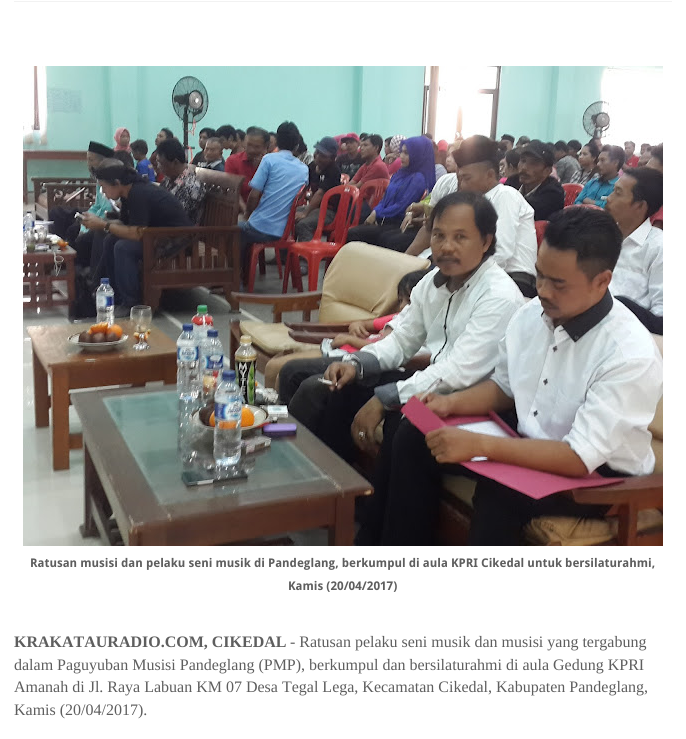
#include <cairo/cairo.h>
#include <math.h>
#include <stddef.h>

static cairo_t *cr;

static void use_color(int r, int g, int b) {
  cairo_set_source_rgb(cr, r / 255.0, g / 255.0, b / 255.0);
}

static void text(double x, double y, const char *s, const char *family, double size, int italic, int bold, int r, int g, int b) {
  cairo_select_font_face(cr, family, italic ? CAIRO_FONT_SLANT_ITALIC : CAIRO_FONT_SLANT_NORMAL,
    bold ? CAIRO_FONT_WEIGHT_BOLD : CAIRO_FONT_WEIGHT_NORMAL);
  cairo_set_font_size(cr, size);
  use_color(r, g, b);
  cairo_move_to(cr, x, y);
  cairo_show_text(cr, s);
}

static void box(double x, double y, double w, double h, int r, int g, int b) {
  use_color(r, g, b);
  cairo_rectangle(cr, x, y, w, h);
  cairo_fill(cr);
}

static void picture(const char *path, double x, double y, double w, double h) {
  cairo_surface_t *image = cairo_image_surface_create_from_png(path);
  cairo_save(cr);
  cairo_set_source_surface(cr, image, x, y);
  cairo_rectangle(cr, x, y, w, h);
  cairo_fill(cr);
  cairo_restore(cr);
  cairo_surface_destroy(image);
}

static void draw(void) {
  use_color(255, 255, 255);
  cairo_paint(cr);
  box(14, 1, 658, 1, 242, 242, 242);
  picture("img_01.png", 23, 66, 640, 480);
  text(30, 567, "Ratusan musisi dan pelaku seni musik di Pandeglang, berkumpul di aula KPRI Cikedal untuk bersilaturahmi,", "Droid Sans", 12, 0, 1, 94, 94, 94);
  text(288, 590, "Kamis (20/04/2017)", "Droid Sans", 12, 0, 1, 94, 94, 94);
  text(14, 647, "KRAKATAURADIO.COM, CIKEDAL", "Liberation Serif", 16, 0, 1, 94, 94, 94);
  text(290, 647, "- Ratusan pelaku seni musik dan musisi yang tergabung", "Liberation Serif", 16, 0, 0, 94, 94, 94);
  text(14, 670, "dalam Paguyuban Musisi Pandeglang (PMP), berkumpul dan bersilaturahmi di aula Gedung KPRI", "Liberation Serif", 16, 0, 0, 94, 94, 94);
  text(14, 692, "Amanah di Jl. Raya Labuan KM 07 Desa Tegal Lega, Kecamatan Cikedal, Kabupaten Pandeglang,", "Liberation Serif", 16, 0, 0, 94, 94, 94);
  text(14, 715, "Kamis (20/04/2017).", "Liberation Serif", 16, 0, 0, 94, 94, 94);
}

int main(void) {
  cairo_surface_t *surface = cairo_image_surface_create(CAIRO_FORMAT_RGB24, 686, 739);
  cr = cairo_create(surface);
  cairo_font_options_t *options = cairo_font_options_create();
  cairo_font_options_set_hint_metrics(options, CAIRO_HINT_METRICS_OFF);
  cairo_font_options_set_hint_style(options, CAIRO_HINT_STYLE_NONE);
  cairo_set_font_options(cr, options);
  cairo_set_miter_limit(cr, 4);
  draw();
  cairo_surface_write_to_png(surface, "out.png");
  cairo_font_options_destroy(options);
  cairo_destroy(cr);
  cairo_surface_destroy(surface);
  return 0;
}
